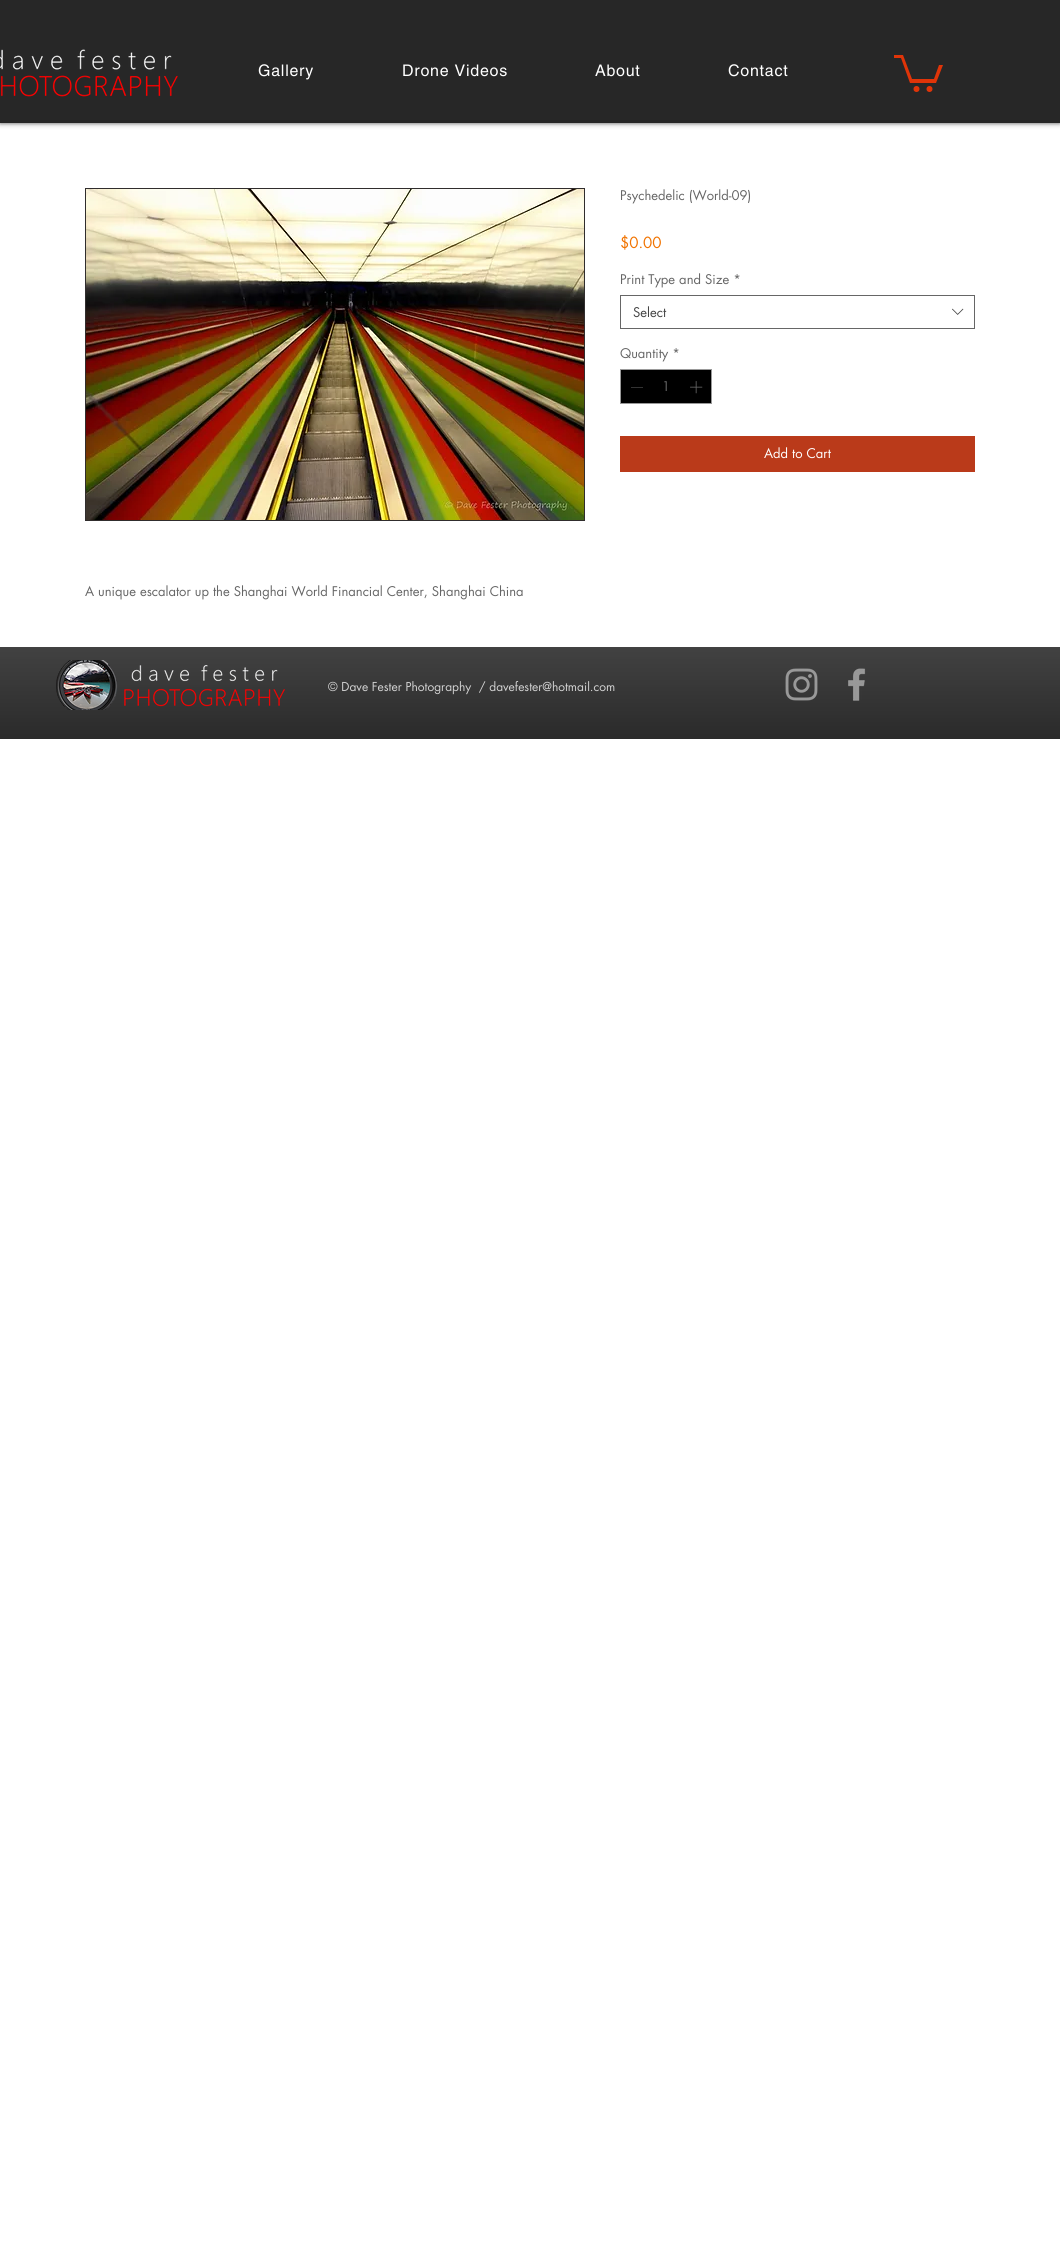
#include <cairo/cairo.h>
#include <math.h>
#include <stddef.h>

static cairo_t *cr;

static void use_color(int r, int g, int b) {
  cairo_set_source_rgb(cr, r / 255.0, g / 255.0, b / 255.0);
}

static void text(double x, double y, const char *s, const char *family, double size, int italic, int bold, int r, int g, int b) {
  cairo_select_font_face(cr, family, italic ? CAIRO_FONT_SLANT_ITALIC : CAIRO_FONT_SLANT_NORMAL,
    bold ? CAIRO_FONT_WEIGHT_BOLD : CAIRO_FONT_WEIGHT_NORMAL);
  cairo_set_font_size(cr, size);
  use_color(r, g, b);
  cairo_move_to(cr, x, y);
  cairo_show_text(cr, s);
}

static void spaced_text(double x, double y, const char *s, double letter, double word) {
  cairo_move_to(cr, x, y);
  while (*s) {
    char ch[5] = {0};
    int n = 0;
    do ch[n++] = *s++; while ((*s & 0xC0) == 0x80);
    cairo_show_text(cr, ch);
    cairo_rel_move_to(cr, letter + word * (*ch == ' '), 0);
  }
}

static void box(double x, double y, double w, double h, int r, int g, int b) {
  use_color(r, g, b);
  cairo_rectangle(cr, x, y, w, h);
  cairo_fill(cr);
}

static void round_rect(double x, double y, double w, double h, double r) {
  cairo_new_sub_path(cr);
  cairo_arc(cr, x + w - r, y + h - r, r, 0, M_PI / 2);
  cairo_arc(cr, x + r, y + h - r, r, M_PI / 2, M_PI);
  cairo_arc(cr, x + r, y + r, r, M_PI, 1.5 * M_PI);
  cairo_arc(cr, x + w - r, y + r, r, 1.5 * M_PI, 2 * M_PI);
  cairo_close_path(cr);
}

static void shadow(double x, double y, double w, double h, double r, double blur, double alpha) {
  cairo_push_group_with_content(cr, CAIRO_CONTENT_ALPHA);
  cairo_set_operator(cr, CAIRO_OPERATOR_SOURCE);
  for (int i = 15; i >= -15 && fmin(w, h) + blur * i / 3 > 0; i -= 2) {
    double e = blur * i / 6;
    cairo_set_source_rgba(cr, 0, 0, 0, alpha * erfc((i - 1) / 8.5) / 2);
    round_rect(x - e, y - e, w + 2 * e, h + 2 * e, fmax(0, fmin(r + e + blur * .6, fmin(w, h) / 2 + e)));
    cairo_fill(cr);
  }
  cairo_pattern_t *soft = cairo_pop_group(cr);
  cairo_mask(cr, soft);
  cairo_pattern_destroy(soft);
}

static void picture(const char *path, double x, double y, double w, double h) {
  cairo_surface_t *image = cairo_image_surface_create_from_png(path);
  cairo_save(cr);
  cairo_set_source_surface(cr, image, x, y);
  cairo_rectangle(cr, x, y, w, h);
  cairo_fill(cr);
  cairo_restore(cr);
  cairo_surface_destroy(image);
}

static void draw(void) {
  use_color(255, 255, 255);
  cairo_paint(cr);
  use_color(0, 0, 0);
  shadow(0, 0, 1060, 123, 0, 2.5, 0.7);
  box(0, 0, 1060, 123, 39, 39, 39);
  picture("img_01.png", 0, 49, 178, 48);
  use_color(224, 52, 8);
  cairo_new_path(cr);
  cairo_move_to(cr, 943, 65);
  cairo_line_to(cr, 936, 83);
  cairo_line_to(cr, 910, 83);
  cairo_line_to(cr, 901, 58);
  cairo_line_to(cr, 894, 58);
  cairo_line_to(cr, 894, 55);
  cairo_line_to(cr, 903, 55);
  cairo_line_to(cr, 912, 79);
  cairo_line_to(cr, 934, 79);
  cairo_line_to(cr, 939, 65);
  cairo_fill(cr);
  cairo_arc(cr, 929.5, 89, 3, 0, 2 * M_PI);
  cairo_fill(cr);
  cairo_arc(cr, 916.5, 89, 3, 0, 2 * M_PI);
  cairo_fill(cr);
  cairo_rectangle(cr, 620.5, 295.5, 354, 33);
  use_color(102, 102, 102);
  cairo_set_line_width(cr, 1);
  cairo_stroke(cr);
  picture("img_02.png", 952, 308, 12, 7);
  use_color(0, 0, 0);
  cairo_rectangle(cr, 620.5, 369.5, 91, 34);
  cairo_fill_preserve(cr);
  use_color(153, 153, 153);
  cairo_stroke(cr);
  use_color(102, 102, 102);
  cairo_set_fill_rule(cr, CAIRO_FILL_RULE_EVEN_ODD);
  cairo_new_path(cr);
  cairo_move_to(cr, 643, 387);
  cairo_line_to(cr, 643, 387.5);
  cairo_line_to(cr, 631, 387.5);
  cairo_line_to(cr, 631, 387);
  cairo_close_path(cr);
  cairo_fill(cr);
  picture("img_03.png", 690, 381, 13, 13);
  box(620, 436, 355, 36, 186, 58, 26);
  cairo_rectangle(cr, 85.5, 188.5, 499, 332);
  use_color(48, 45, 45);
  cairo_stroke(cr);
  picture("img_04.png", 86, 189, 498, 331);
  box(0, 647, 1060, 92, 0, 0, 0);
  picture("img_05.png", 0, 647, 1060, 92);
  picture("img_06.png", 56, 660, 229, 50);
  picture("img_07.png", 785, 668, 33, 33);
  picture("img_08.png", 848, 668, 18, 33);
  cairo_select_font_face(cr, "helvetica", CAIRO_FONT_SLANT_NORMAL, CAIRO_FONT_WEIGHT_NORMAL);
  cairo_set_font_size(cr, 16);
  use_color(255, 255, 255);
  spaced_text(258, 76, "Gallery", 0.75, 0);
  spaced_text(402, 76, "Drone Videos", 0.75, 0);
  spaced_text(595, 76, "About", 0.75, 0);
  spaced_text(728, 76, "Contact", 0.75, 0);
  text(620, 200, "Psychedelic (World-09)", "futura", 13, 0, 0, 102, 102, 102);
  text(620, 248, "$0.00", "futura", 15, 0, 0, 241, 115, 0);
  text(620, 284, "Print Type and Size *", "futura", 13, 0, 0, 102, 102, 102);
  text(633, 317, "Select", "futura", 13, 0, 0, 68, 68, 68);
  text(620, 358, "Quantity *", "futura", 13, 0, 0, 102, 102, 102);
  text(662, 391, "1", "futura", 13, 0, 0, 102, 102, 102);
  text(764, 458, "Add to Cart", "futura", 13, 0, 0, 255, 255, 255);
  text(85, 596, "A unique escalator up the Shanghai World Financial Center, Shanghai China", "futura", 13, 0, 0, 102, 102, 102);
  text(328, 691, "© Dave Fester Photography  / davefester@hotmail.com", "futura", 12, 0, 0, 210, 210, 210);
}

int main(void) {
  cairo_surface_t *surface = cairo_image_surface_create(CAIRO_FORMAT_RGB24, 1060, 2265);
  cr = cairo_create(surface);
  cairo_font_options_t *options = cairo_font_options_create();
  cairo_font_options_set_hint_metrics(options, CAIRO_HINT_METRICS_OFF);
  cairo_font_options_set_hint_style(options, CAIRO_HINT_STYLE_NONE);
  cairo_set_font_options(cr, options);
  cairo_set_miter_limit(cr, 4);
  draw();
  cairo_surface_write_to_png(surface, "out.png");
  cairo_font_options_destroy(options);
  cairo_destroy(cr);
  cairo_surface_destroy(surface);
  return 0;
}
